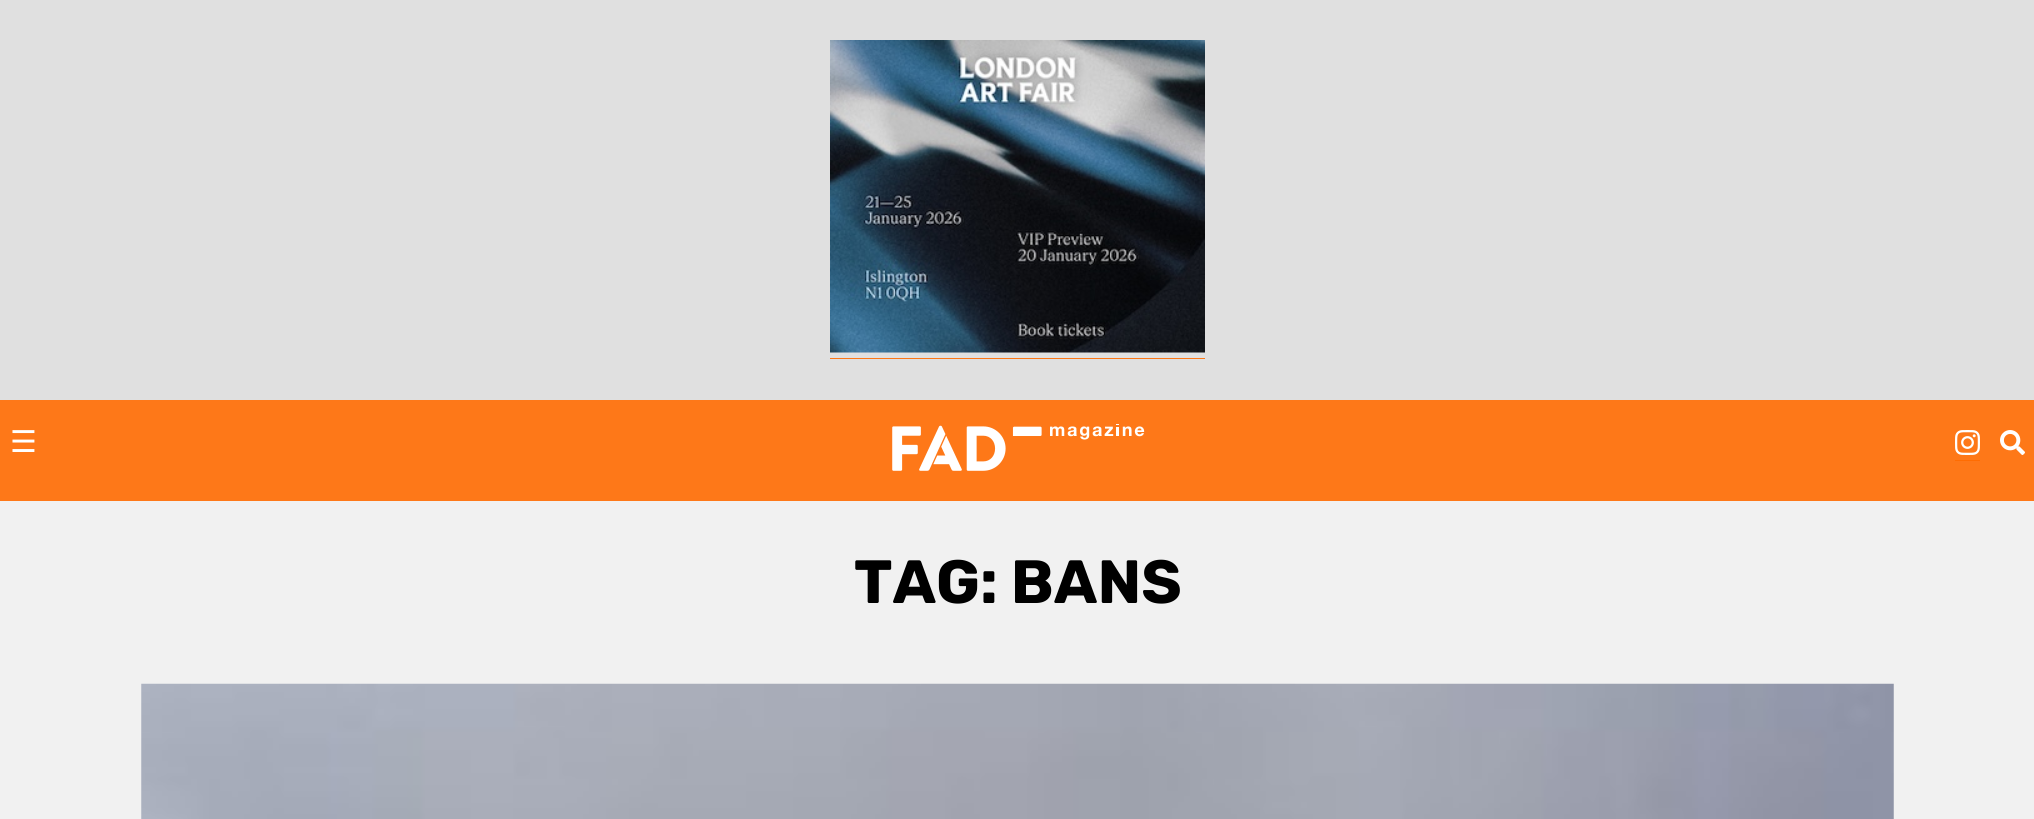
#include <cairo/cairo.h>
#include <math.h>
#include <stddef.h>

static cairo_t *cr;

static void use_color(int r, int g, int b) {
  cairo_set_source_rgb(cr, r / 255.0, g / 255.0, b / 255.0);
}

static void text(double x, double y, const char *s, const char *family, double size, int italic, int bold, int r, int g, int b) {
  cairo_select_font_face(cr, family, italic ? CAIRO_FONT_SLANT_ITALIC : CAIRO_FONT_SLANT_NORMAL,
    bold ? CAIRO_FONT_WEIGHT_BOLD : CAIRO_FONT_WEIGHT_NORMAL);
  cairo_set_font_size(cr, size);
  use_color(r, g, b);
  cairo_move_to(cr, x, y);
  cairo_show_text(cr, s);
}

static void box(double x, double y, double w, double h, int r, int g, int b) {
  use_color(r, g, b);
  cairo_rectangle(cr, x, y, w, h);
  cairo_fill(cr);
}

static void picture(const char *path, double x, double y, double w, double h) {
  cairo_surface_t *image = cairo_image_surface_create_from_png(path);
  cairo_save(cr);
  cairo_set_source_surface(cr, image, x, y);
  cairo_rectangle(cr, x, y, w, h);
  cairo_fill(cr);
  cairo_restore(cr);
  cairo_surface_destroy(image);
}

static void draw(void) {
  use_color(241, 241, 241);
  cairo_paint(cr);
  box(0, 0, 2034, 400, 224, 224, 224);
  picture("img_01.png", 830, 40, 375, 313);
  box(830, 358, 375, 1, 252, 119, 22);
  box(0, 400, 2034, 101, 254, 120, 24);
  picture("img_02.png", 892, 424, 253, 47);
  box(1955, 460, 25, 1, 255, 108, 2);
  picture("img_03.png", 1955, 430, 25, 25);
  picture("img_04.png", 2000, 430, 25, 25);
  picture("img_05.png", 141, 683, 1753, 136);
  text(10, 452, "☰", "DejaVu Sans", 30, 0, 0, 255, 255, 255);
  text(854, 603, "TAG: BANS", "Rubik", 61, 0, 1, 0, 0, 0);
}

int main(void) {
  cairo_surface_t *surface = cairo_image_surface_create(CAIRO_FORMAT_RGB24, 2034, 819);
  cr = cairo_create(surface);
  cairo_font_options_t *options = cairo_font_options_create();
  cairo_font_options_set_hint_metrics(options, CAIRO_HINT_METRICS_OFF);
  cairo_font_options_set_hint_style(options, CAIRO_HINT_STYLE_NONE);
  cairo_set_font_options(cr, options);
  cairo_set_miter_limit(cr, 4);
  draw();
  cairo_surface_write_to_png(surface, "out.png");
  cairo_font_options_destroy(options);
  cairo_destroy(cr);
  cairo_surface_destroy(surface);
  return 0;
}
